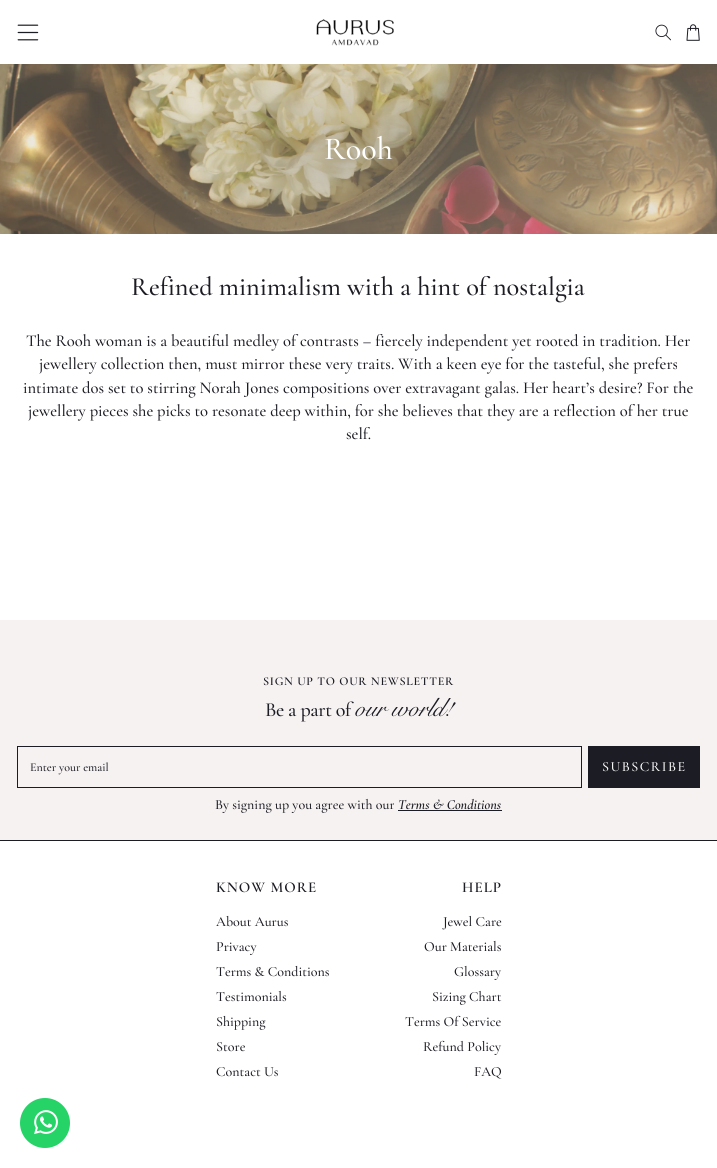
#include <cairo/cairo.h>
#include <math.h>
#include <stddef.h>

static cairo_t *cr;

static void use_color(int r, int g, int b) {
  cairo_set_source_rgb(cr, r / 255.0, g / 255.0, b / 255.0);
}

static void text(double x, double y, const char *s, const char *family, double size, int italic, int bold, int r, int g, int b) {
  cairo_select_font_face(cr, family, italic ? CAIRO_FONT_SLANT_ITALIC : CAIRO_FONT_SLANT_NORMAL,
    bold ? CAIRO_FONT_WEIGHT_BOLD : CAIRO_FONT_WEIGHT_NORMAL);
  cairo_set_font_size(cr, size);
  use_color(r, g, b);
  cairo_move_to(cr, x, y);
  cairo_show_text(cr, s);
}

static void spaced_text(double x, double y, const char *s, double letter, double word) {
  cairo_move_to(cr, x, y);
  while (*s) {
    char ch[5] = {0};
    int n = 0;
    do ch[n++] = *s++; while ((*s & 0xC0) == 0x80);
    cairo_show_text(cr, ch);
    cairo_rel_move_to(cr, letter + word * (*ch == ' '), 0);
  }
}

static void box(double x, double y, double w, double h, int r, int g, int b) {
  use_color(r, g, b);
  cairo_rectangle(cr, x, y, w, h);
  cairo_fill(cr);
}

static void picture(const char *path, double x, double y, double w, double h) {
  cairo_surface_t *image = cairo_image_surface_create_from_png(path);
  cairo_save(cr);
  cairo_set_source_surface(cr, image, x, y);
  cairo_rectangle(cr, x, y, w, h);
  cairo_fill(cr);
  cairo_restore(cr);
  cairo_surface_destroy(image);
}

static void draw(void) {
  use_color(255, 255, 255);
  cairo_paint(cr);
  picture("img_01.png", 17, 24, 22, 17);
  picture("img_02.png", 316, 19, 78, 27);
  picture("img_03.png", 655, 24, 16, 17);
  picture("img_04.png", 686, 24, 14, 17);
  picture("img_05.png", 0, 64, 717, 170);
  box(0, 620, 717, 220, 246, 242, 241);
  cairo_rectangle(cr, 17.5, 746.5, 564, 41);
  use_color(28, 28, 36);
  cairo_set_line_width(cr, 1);
  cairo_stroke(cr);
  box(588, 746, 112, 42, 28, 28, 36);
  box(398, 810, 104, 1, 28, 28, 36);
  box(0, 840, 717, 1, 28, 28, 36);
  picture("img_06.png", 20, 1098, 50, 50);
  text(324, 159, "Rooh", "Cormorant Garamond Medium", 32, 0, 0, 255, 255, 255);
  text(131, 295, "Refined minimalism with a hint of nostalgia", "Cormorant Garamond Medium", 26.25, 0, 0, 28, 28, 36);
  text(26, 346, "The Rooh woman is a beautiful medley of contrasts – fiercely independent yet rooted in tradition. Her", "Cormorant Garamond Medium", 16.55, 0, 0, 28, 28, 36);
  text(39, 369, "jewellery collection then, must mirror these very traits. With a keen eye for the tasteful, she prefers", "Cormorant Garamond Medium", 16.55, 0, 0, 28, 28, 36);
  text(23, 393, "intimate dos set to stirring Norah Jones compositions over extravagant galas. Her heart’s desire? For the", "Cormorant Garamond Medium", 16.55, 0, 0, 28, 28, 36);
  text(28, 416, "jewellery pieces she picks to resonate deep within, for she believes that they are a reflection of her true", "Cormorant Garamond Medium", 16.55, 0, 0, 28, 28, 36);
  text(346, 439, "self.", "Cormorant Garamond Medium", 16.55, 0, 0, 28, 28, 36);
  cairo_select_font_face(cr, "Cormorant Garamond SemiBold", CAIRO_FONT_SLANT_NORMAL, CAIRO_FONT_WEIGHT_NORMAL);
  cairo_set_font_size(cr, 12);
  spaced_text(263, 685, "SIGN UP TO OUR NEWSLETTER", 0.75, 0);
  cairo_select_font_face(cr, "Cormorant Garamond Medium", CAIRO_FONT_SLANT_NORMAL, CAIRO_FONT_WEIGHT_NORMAL);
  cairo_set_font_size(cr, 20);
  spaced_text(265, 716, "Be a part of", -0.4, 0);
  cairo_select_font_face(cr, "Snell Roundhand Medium", CAIRO_FONT_SLANT_NORMAL, CAIRO_FONT_WEIGHT_NORMAL);
  cairo_set_font_size(cr, 26);
  spaced_text(355, 716, "our world!", -0.4, 0);
  text(30, 771, "Enter your email", "Cormorant Garamond Medium", 12, 0, 0, 28, 28, 36);
  cairo_set_font_size(cr, 14);
  use_color(255, 255, 255);
  spaced_text(602, 771, "SUBSCRIBE", 1.5, 0);
  text(215, 809, "By signing up you agree with our", "Cormorant Garamond Medium", 14, 0, 0, 28, 28, 36);
  text(398, 809, "Terms & Conditions", "Cormorant Garamond SemiBold", 14, 1, 0, 28, 28, 36);
  cairo_select_font_face(cr, "Cormorant Garamond SemiBold", CAIRO_FONT_SLANT_NORMAL, CAIRO_FONT_WEIGHT_NORMAL);
  cairo_set_font_size(cr, 15);
  spaced_text(216, 892, "KNOW MORE", 1, 0);
  text(216, 926, "About Aurus", "Cormorant Garamond Medium", 14, 0, 0, 28, 28, 36);
  text(216, 951, "Privacy", "Cormorant Garamond Medium", 14, 0, 0, 28, 28, 36);
  text(216, 976, "Terms & Conditions", "Cormorant Garamond Medium", 14, 0, 0, 28, 28, 36);
  text(216, 1001, "Testimonials", "Cormorant Garamond Medium", 14, 0, 0, 28, 28, 36);
  text(216, 1026, "Shipping", "Cormorant Garamond Medium", 14, 0, 0, 28, 28, 36);
  text(216, 1051, "Store", "Cormorant Garamond Medium", 14, 0, 0, 28, 28, 36);
  text(216, 1076, "Contact Us", "Cormorant Garamond Medium", 14, 0, 0, 28, 28, 36);
  cairo_select_font_face(cr, "Cormorant Garamond SemiBold", CAIRO_FONT_SLANT_NORMAL, CAIRO_FONT_WEIGHT_NORMAL);
  cairo_set_font_size(cr, 15);
  spaced_text(462, 892, "HELP", 1, 0);
  text(443, 926, "Jewel Care", "Cormorant Garamond Medium", 14, 0, 0, 28, 28, 36);
  text(424, 951, "Our Materials", "Cormorant Garamond Medium", 14, 0, 0, 28, 28, 36);
  text(454, 976, "Glossary", "Cormorant Garamond Medium", 14, 0, 0, 28, 28, 36);
  text(432, 1001, "Sizing Chart", "Cormorant Garamond Medium", 14, 0, 0, 28, 28, 36);
  text(405, 1026, "Terms Of Service", "Cormorant Garamond Medium", 14, 0, 0, 28, 28, 36);
  text(423, 1051, "Refund Policy", "Cormorant Garamond Medium", 14, 0, 0, 28, 28, 36);
  text(474, 1076, "FAQ", "Cormorant Garamond Medium", 14, 0, 0, 28, 28, 36);
}

int main(void) {
  cairo_surface_t *surface = cairo_image_surface_create(CAIRO_FORMAT_RGB24, 717, 1168);
  cr = cairo_create(surface);
  cairo_font_options_t *options = cairo_font_options_create();
  cairo_font_options_set_hint_metrics(options, CAIRO_HINT_METRICS_OFF);
  cairo_font_options_set_hint_style(options, CAIRO_HINT_STYLE_NONE);
  cairo_set_font_options(cr, options);
  cairo_set_miter_limit(cr, 4);
  draw();
  cairo_surface_write_to_png(surface, "out.png");
  cairo_font_options_destroy(options);
  cairo_destroy(cr);
  cairo_surface_destroy(surface);
  return 0;
}
